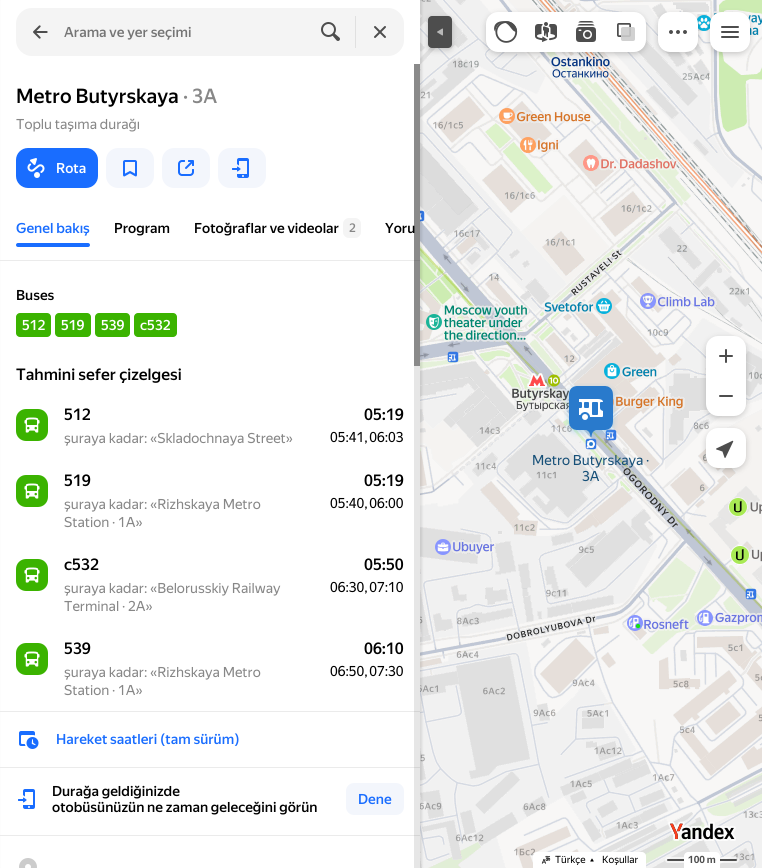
#include <cairo/cairo.h>
#include <math.h>
#include <stddef.h>

static cairo_t *cr;

static void use_color(int r, int g, int b) {
  cairo_set_source_rgb(cr, r / 255.0, g / 255.0, b / 255.0);
}

static void text(double x, double y, const char *s, const char *family, double size, int italic, int bold, int r, int g, int b) {
  cairo_select_font_face(cr, family, italic ? CAIRO_FONT_SLANT_ITALIC : CAIRO_FONT_SLANT_NORMAL,
    bold ? CAIRO_FONT_WEIGHT_BOLD : CAIRO_FONT_WEIGHT_NORMAL);
  cairo_set_font_size(cr, size);
  use_color(r, g, b);
  cairo_move_to(cr, x, y);
  cairo_show_text(cr, s);
}

static void spaced_text(double x, double y, const char *s, double letter, double word) {
  cairo_move_to(cr, x, y);
  while (*s) {
    char ch[5] = {0};
    int n = 0;
    do ch[n++] = *s++; while ((*s & 0xC0) == 0x80);
    cairo_show_text(cr, ch);
    cairo_rel_move_to(cr, letter + word * (*ch == ' '), 0);
  }
}

static void box(double x, double y, double w, double h, int r, int g, int b) {
  use_color(r, g, b);
  cairo_rectangle(cr, x, y, w, h);
  cairo_fill(cr);
}

static void round_rect(double x, double y, double w, double h, double r) {
  cairo_new_sub_path(cr);
  cairo_arc(cr, x + w - r, y + h - r, r, 0, M_PI / 2);
  cairo_arc(cr, x + r, y + h - r, r, M_PI / 2, M_PI);
  cairo_arc(cr, x + r, y + r, r, M_PI, 1.5 * M_PI);
  cairo_arc(cr, x + w - r, y + r, r, 1.5 * M_PI, 2 * M_PI);
  cairo_close_path(cr);
}

static void shadow(double x, double y, double w, double h, double r, double blur, double alpha) {
  cairo_push_group_with_content(cr, CAIRO_CONTENT_ALPHA);
  cairo_set_operator(cr, CAIRO_OPERATOR_SOURCE);
  for (int i = 15; i >= -15 && fmin(w, h) + blur * i / 3 > 0; i -= 2) {
    double e = blur * i / 6;
    cairo_set_source_rgba(cr, 0, 0, 0, alpha * erfc((i - 1) / 8.5) / 2);
    round_rect(x - e, y - e, w + 2 * e, h + 2 * e, fmax(0, fmin(r + e + blur * .6, fmin(w, h) / 2 + e)));
    cairo_fill(cr);
  }
  cairo_pattern_t *soft = cairo_pop_group(cr);
  cairo_mask(cr, soft);
  cairo_pattern_destroy(soft);
}

static void picture(const char *path, double x, double y, double w, double h) {
  cairo_surface_t *image = cairo_image_surface_create_from_png(path);
  cairo_save(cr);
  cairo_set_source_surface(cr, image, x, y);
  cairo_rectangle(cr, x, y, w, h);
  cairo_fill(cr);
  cairo_restore(cr);
  cairo_surface_destroy(image);
}

static void draw(void) {
  use_color(255, 255, 255);
  cairo_paint(cr);
  picture("img_25.png", 420, 0, 41, 144);
  picture("img_28.png", 420, 144, 41, 256);
  picture("img_31.png", 420, 400, 41, 256);
  picture("img_34.png", 420, 656, 41, 212);
  use_color(0, 0, 0);
  shadow(2, 0, 420, 868, 0, 1, 0.1);
  picture("img_26.png", 461, 0, 256, 144);
  shadow(428, 18, 24, 32, 4, 3, 0.2);
  box(1, 0, 419, 868, 255, 255, 255);
  use_color(244, 244, 244);
  round_rect(16, 8, 388, 48, 16);
  cairo_fill(cr);
  picture("img_01.png", 33, 25, 15, 14);
  picture("img_02.png", 321, 22, 19, 19);
  box(355, 16, 1, 32, 224, 224, 224);
  picture("img_03.png", 374, 26, 12, 12);
  use_color(0, 0, 0);
  shadow(486, 14, 160, 40, 12, 3, 0.2);
  use_color(255, 255, 255);
  cairo_new_path(cr);
  cairo_move_to(cr, 498, 12);
  cairo_line_to(cr, 526, 12);
  cairo_line_to(cr, 526, 52);
  cairo_line_to(cr, 498, 52);
  cairo_curve_to(cr, 491.5, 52, 486, 46.5, 486, 40);
  cairo_line_to(cr, 486, 24);
  cairo_curve_to(cr, 486, 17.5, 491.5, 12, 498, 12);
  cairo_close_path(cr);
  cairo_fill(cr);
  picture("img_04.png", 494, 21, 24, 22);
  box(526, 12, 80, 40, 255, 255, 255);
  picture("img_05.png", 535, 22, 22, 20);
  cairo_new_path(cr);
  cairo_move_to(cr, 606, 12);
  cairo_line_to(cr, 634, 12);
  cairo_curve_to(cr, 640.5, 12, 646, 17.5, 646, 24);
  cairo_line_to(cr, 646, 40);
  cairo_curve_to(cr, 646, 46.5, 640.5, 52, 634, 52);
  cairo_line_to(cr, 606, 52);
  cairo_close_path(cr);
  cairo_fill(cr);
  picture("img_06.png", 617, 23, 18, 18);
  picture("img_07.png", 576, 21, 20, 21);
  use_color(0, 0, 0);
  shadow(658, 14, 40, 40, 12, 3, 0.2);
  use_color(255, 255, 255);
  round_rect(658, 12, 40, 40, 12);
  cairo_fill(cr);
  picture("img_08.png", 669, 30, 18, 4);
  picture("img_27.png", 717, 0, 45, 144);
  use_color(0, 0, 0);
  shadow(710, 14, 40, 40, 12, 3, 0.2);
  use_color(255, 255, 255);
  round_rect(710, 12, 40, 40, 12);
  cairo_fill(cr);
  picture("img_09.png", 721, 26, 18, 12);
  picture("img_29.png", 461, 144, 256, 256);
  picture("img_30.png", 717, 144, 45, 256);
  picture("img_32.png", 461, 400, 256, 256);
  picture("img_33.png", 717, 400, 45, 256);
  use_color(0, 0, 0);
  shadow(706, 338, 40, 80, 12, 3, 0.2);
  use_color(255, 255, 255);
  cairo_new_path(cr);
  cairo_move_to(cr, 718, 336);
  cairo_line_to(cr, 734, 336);
  cairo_curve_to(cr, 740.5, 336, 746, 341.5, 746, 348);
  cairo_line_to(cr, 746, 376);
  cairo_line_to(cr, 706, 376);
  cairo_line_to(cr, 706, 348);
  cairo_curve_to(cr, 706, 341.5, 711.5, 336, 718, 336);
  cairo_close_path(cr);
  cairo_fill(cr);
  picture("img_10.png", 719, 349, 14, 14);
  cairo_new_path(cr);
  cairo_move_to(cr, 706, 376);
  cairo_line_to(cr, 746, 376);
  cairo_line_to(cr, 746, 404);
  cairo_curve_to(cr, 746, 410.5, 740.5, 416, 734, 416);
  cairo_line_to(cr, 718, 416);
  cairo_curve_to(cr, 711.5, 416, 706, 410.5, 706, 404);
  cairo_close_path(cr);
  cairo_fill(cr);
  picture("img_11.png", 719, 395, 14, 2);
  use_color(0, 0, 0);
  shadow(706, 430, 40, 40, 12, 3, 0.2);
  use_color(255, 255, 255);
  round_rect(706, 428, 40, 40, 12);
  cairo_fill(cr);
  picture("img_12.png", 716, 440, 18, 18);
  use_color(77, 77, 77);
  round_rect(428, 16, 24, 32, 4);
  cairo_fill(cr);
  picture("img_13.png", 437, 28, 6, 8);
  use_color(25, 109, 255);
  round_rect(16, 148, 82, 40, 12);
  cairo_fill(cr);
  picture("img_14.png", 27, 158, 18, 20);
  use_color(243, 246, 252);
  round_rect(106, 148, 48, 40, 12);
  cairo_fill(cr);
  picture("img_15.png", 123, 160, 14, 17);
  round_rect(162, 148, 48, 40, 12);
  cairo_fill(cr);
  picture("img_16.png", 178, 160, 16, 16);
  round_rect(218, 148, 48, 40, 12);
  cairo_fill(cr);
  picture("img_17.png", 232, 158, 17, 20);
  use_color(244, 244, 244);
  round_rect(343, 218, 18, 20, 6);
  cairo_fill(cr);
  use_color(25, 109, 255);
  round_rect(16, 243, 74, 4, 2);
  cairo_fill(cr);
  box(0, 260, 420, 1, 235, 235, 235);
  use_color(59, 179, 0);
  round_rect(16, 313, 35, 24, 4);
  cairo_fill(cr);
  round_rect(55, 313, 36, 24, 4);
  cairo_fill(cr);
  round_rect(95, 313, 35, 24, 4);
  cairo_fill(cr);
  round_rect(134, 313, 43, 24, 4);
  cairo_fill(cr);
  round_rect(16, 409, 32, 32, 10);
  cairo_fill(cr);
  picture("img_18.png", 24, 417, 16, 16);
  round_rect(16, 475, 32, 32, 10);
  cairo_fill(cr);
  picture("img_18.png", 24, 483, 16, 16);
  round_rect(16, 559, 32, 32, 10);
  cairo_fill(cr);
  picture("img_18.png", 24, 567, 16, 16);
  round_rect(16, 643, 32, 32, 10);
  cairo_fill(cr);
  picture("img_18.png", 24, 651, 16, 16);
  box(0, 711, 420, 1, 235, 235, 235);
  picture("img_19.png", 19, 731, 20, 18);
  box(0, 767, 420, 1, 235, 235, 235);
  picture("img_20.png", 18, 789, 17, 20);
  use_color(243, 246, 252);
  round_rect(346, 783, 58, 32, 8);
  cairo_fill(cr);
  box(0, 835, 420, 1, 235, 235, 235);
  picture("img_21.png", 19, 858, 18, 10);
  cairo_set_source_rgba(cr, 0, 0, 0, 0.1);
  cairo_rectangle(cr, 414, 64, 6, 804);
  cairo_fill(cr);
  picture("img_35.png", 461, 656, 256, 212);
  picture("img_36.png", 717, 656, 45, 212);
  picture("img_22.png", 668, 821, 68, 20);
  use_color(255, 255, 255);
  cairo_new_path(cr);
  cairo_move_to(cr, 537, 852);
  cairo_line_to(cr, 642, 852);
  cairo_curve_to(cr, 644, 852, 646, 854, 646, 856);
  cairo_line_to(cr, 646, 868);
  cairo_line_to(cr, 533, 868);
  cairo_line_to(cr, 533, 856);
  cairo_curve_to(cr, 533, 854, 535, 852, 537, 852);
  cairo_close_path(cr);
  cairo_fill(cr);
  picture("img_23.png", 541, 855, 10, 9);
  picture("img_24.png", 590, 858, 4, 4);
  cairo_set_source_rgba(cr, 1, 1, 1, 0.6);
  round_rect(665, 857, 74, 6, 3);
  cairo_fill(cr);
  use_color(77, 77, 77);
  round_rect(667, 859, 70, 2, 1);
  cairo_fill(cr);
  use_color(255, 255, 255);
  cairo_new_path(cr);
  cairo_move_to(cr, 688, 852);
  cairo_line_to(cr, 716, 852);
  cairo_curve_to(cr, 718, 852, 720, 854, 720, 856);
  cairo_line_to(cr, 720, 868);
  cairo_line_to(cr, 684, 868);
  cairo_line_to(cr, 684, 856);
  cairo_curve_to(cr, 684, 854, 686, 852, 688, 852);
  cairo_close_path(cr);
  cairo_fill(cr);
  picture("img_37.png", 564, 383, 54, 65);
  picture("img_38.png", 579, 399, 24, 21);
  text(64, 37, "Arama ve yer seçimi", "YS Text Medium", 14, 0, 0, 117, 117, 117);
  text(16, 103, "Metro Butyrskaya", "YS Text Medium", 20, 0, 0, 0, 0, 0);
  text(183, 103, "· 3A", "YS Text Medium", 20, 0, 0, 135, 135, 135);
  text(16, 129, "Toplu taşıma durağı", "YS Text", 14, 0, 0, 135, 135, 135);
  text(56, 173, "Rota", "YS Text Medium", 14, 0, 0, 255, 255, 255);
  text(16, 233, "Genel bakış", "YS Text Medium", 14, 0, 0, 25, 109, 255);
  text(114, 233, "Program", "YS Text Medium", 14, 0, 0, 0, 0, 0);
  text(194, 233, "Fotoğraflar ve videolar", "YS Text Medium", 14, 0, 0, 0, 0, 0);
  text(349, 232, "2", "YS Text Medium", 12, 0, 0, 135, 135, 135);
  text(385, 233, "Yoru", "YS Text Medium", 14, 0, 0, 0, 0, 0);
  text(16, 300, "Buses", "YS Text Medium", 14, 0, 0, 0, 0, 0);
  text(22, 330, "512", "YS Text Medium", 14, 0, 0, 255, 255, 255);
  text(61, 330, "519", "YS Text Medium", 14, 0, 0, 255, 255, 255);
  text(101, 330, "539", "YS Text Medium", 14, 0, 0, 255, 255, 255);
  text(140, 330, "с532", "YS Text Medium", 14, 0, 0, 255, 255, 255);
  text(16, 380, "Tahmini sefer çizelgesi", "YS Text Medium", 16, 0, 0, 0, 0, 0);
  text(64, 420, "512", "YS Text Medium", 16, 0, 0, 0, 0, 0);
  text(64, 443, "şuraya kadar: «Skladochnaya Street»", "YS Text", 14, 0, 0, 135, 135, 135);
  text(364, 420, "05:19", "YS Text Medium", 16, 0, 0, 0, 0, 0);
  cairo_select_font_face(cr, "YS Text", CAIRO_FONT_SLANT_NORMAL, CAIRO_FONT_WEIGHT_NORMAL);
  cairo_set_font_size(cr, 14);
  spaced_text(330, 442, "05:41, 06:03", 0, -1);
  text(64, 486, "519", "YS Text Medium", 16, 0, 0, 0, 0, 0);
  text(64, 509, "şuraya kadar: «Rizhskaya Metro", "YS Text", 14, 0, 0, 135, 135, 135);
  text(64, 527, "Station · 1A»", "YS Text", 14, 0, 0, 135, 135, 135);
  text(364, 486, "05:19", "YS Text Medium", 16, 0, 0, 0, 0, 0);
  cairo_select_font_face(cr, "YS Text", CAIRO_FONT_SLANT_NORMAL, CAIRO_FONT_WEIGHT_NORMAL);
  cairo_set_font_size(cr, 14);
  spaced_text(330, 508, "05:40, 06:00", 0, -1);
  text(64, 570, "с532", "YS Text Medium", 16, 0, 0, 0, 0, 0);
  text(64, 593, "şuraya kadar: «Belorusskiy Railway", "YS Text", 14, 0, 0, 135, 135, 135);
  text(64, 611, "Terminal · 2A»", "YS Text", 14, 0, 0, 135, 135, 135);
  text(364, 570, "05:50", "YS Text Medium", 16, 0, 0, 0, 0, 0);
  cairo_select_font_face(cr, "YS Text", CAIRO_FONT_SLANT_NORMAL, CAIRO_FONT_WEIGHT_NORMAL);
  cairo_set_font_size(cr, 14);
  spaced_text(330, 592, "06:30, 07:10", 0, -1);
  text(64, 654, "539", "YS Text Medium", 16, 0, 0, 0, 0, 0);
  text(64, 677, "şuraya kadar: «Rizhskaya Metro", "YS Text", 14, 0, 0, 135, 135, 135);
  text(64, 695, "Station · 1A»", "YS Text", 14, 0, 0, 135, 135, 135);
  text(364, 654, "06:10", "YS Text Medium", 16, 0, 0, 0, 0, 0);
  cairo_select_font_face(cr, "YS Text", CAIRO_FONT_SLANT_NORMAL, CAIRO_FONT_WEIGHT_NORMAL);
  cairo_set_font_size(cr, 14);
  spaced_text(330, 676, "06:50, 07:30", 0, -1);
  text(56, 744, "Hareket saatleri (tam sürüm)", "YS Text Medium", 14, 0, 0, 25, 109, 255);
  text(52, 796, "Durağa geldiğinizde", "YS Text Medium", 14, 0, 0, 0, 0, 0);
  text(52, 812, "otobüsünüzün ne zaman geleceğini görün", "YS Text Medium", 14, 0, 0, 0, 0, 0);
  text(358, 804, "Dene", "YS Text Medium", 14, 0, 0, 25, 109, 255);
  cairo_set_source_rgba(cr, 0, 0, 0, 0.4);
  cairo_rectangle(cr, 414, 64, 6, 302);
  cairo_fill(cr);
  text(555, 863, "Türkçe", "YS Text", 10, 0, 0, 0, 0, 0);
  text(602, 863, "Koşullar", "YS Text", 10, 0, 0, 0, 0, 0);
  text(688, 863, "100 m", "YS Text", 10, 0, 1, 77, 77, 77);
  text(532, 465, "Metro Butyrskaya ·", "YS Text", 14, 0, 0, 23, 80, 120);
  text(582, 481, "3A", "YS Text", 14, 0, 0, 23, 80, 120);
}

int main(void) {
  cairo_surface_t *surface = cairo_image_surface_create(CAIRO_FORMAT_RGB24, 762, 868);
  cr = cairo_create(surface);
  cairo_font_options_t *options = cairo_font_options_create();
  cairo_font_options_set_hint_metrics(options, CAIRO_HINT_METRICS_OFF);
  cairo_font_options_set_hint_style(options, CAIRO_HINT_STYLE_NONE);
  cairo_set_font_options(cr, options);
  cairo_set_miter_limit(cr, 4);
  draw();
  cairo_surface_write_to_png(surface, "out.png");
  cairo_font_options_destroy(options);
  cairo_destroy(cr);
  cairo_surface_destroy(surface);
  return 0;
}
